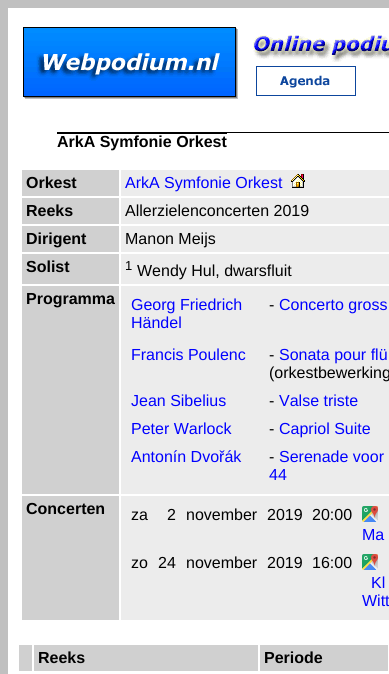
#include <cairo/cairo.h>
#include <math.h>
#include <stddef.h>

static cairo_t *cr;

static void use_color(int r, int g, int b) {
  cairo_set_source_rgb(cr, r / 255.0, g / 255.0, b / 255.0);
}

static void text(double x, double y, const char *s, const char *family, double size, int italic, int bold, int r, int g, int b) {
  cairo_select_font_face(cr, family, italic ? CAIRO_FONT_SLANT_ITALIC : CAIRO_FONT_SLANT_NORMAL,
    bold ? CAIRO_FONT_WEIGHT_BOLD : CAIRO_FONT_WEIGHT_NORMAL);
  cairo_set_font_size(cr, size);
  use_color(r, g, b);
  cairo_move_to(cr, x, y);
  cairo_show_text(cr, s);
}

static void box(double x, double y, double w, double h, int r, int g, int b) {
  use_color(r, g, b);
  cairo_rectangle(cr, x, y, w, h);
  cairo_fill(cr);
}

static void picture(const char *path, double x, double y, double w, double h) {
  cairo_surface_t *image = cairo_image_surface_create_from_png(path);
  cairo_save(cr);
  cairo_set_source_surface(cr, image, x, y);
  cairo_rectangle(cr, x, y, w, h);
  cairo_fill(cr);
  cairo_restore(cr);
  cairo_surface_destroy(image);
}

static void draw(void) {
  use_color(192, 192, 192);
  cairo_paint(cr);
  box(8, 8, 381, 666, 255, 255, 255);
  picture("img_01.png", 23, 27, 215, 72);
  picture("img_02.png", 253, 35, 136, 27);
  picture("img_03.png", 256, 66, 100, 30);
  box(57, 132, 332, 1, 0, 0, 0);
  box(57, 133, 170, 1, 0, 0, 0);
  box(22, 170, 97, 26, 208, 208, 208);
  box(121, 170, 268, 26, 236, 236, 236);
  picture("img_04.png", 291, 174, 14, 14);
  box(22, 198, 97, 26, 208, 208, 208);
  box(121, 198, 268, 26, 236, 236, 236);
  box(22, 226, 97, 26, 208, 208, 208);
  box(121, 226, 268, 26, 236, 236, 236);
  box(22, 254, 97, 30, 208, 208, 208);
  box(121, 254, 268, 30, 236, 236, 236);
  box(22, 286, 97, 208, 208, 208, 208);
  box(121, 286, 268, 208, 236, 236, 236);
  box(22, 496, 97, 124, 208, 208, 208);
  box(121, 496, 268, 124, 236, 236, 236);
  picture("img_05.png", 362, 506, 16, 16);
  picture("img_05.png", 362, 554, 16, 16);
  box(19, 645, 13, 26, 208, 208, 208);
  box(34, 645, 224, 26, 208, 208, 208);
  box(260, 645, 128, 26, 208, 208, 208);
  text(57, 147, "ArkA Symfonie Orkest", "Liberation Sans", 16, 0, 1, 0, 0, 0);
  text(26, 188, "Orkest", "Liberation Sans", 16, 0, 1, 0, 0, 0);
  text(125, 188, "ArkA Symfonie Orkest", "Liberation Sans", 16, 0, 0, 0, 0, 255);
  text(26, 216, "Reeks", "Liberation Sans", 16, 0, 1, 0, 0, 0);
  text(125, 216, "Allerzielenconcerten 2019", "Liberation Sans", 16, 0, 0, 0, 0, 0);
  text(26, 244, "Dirigent", "Liberation Sans", 16, 0, 1, 0, 0, 0);
  text(125, 244, "Manon Meijs", "Liberation Sans", 16, 0, 0, 0, 0, 0);
  text(26, 272, "Solist", "Liberation Sans", 16, 0, 1, 0, 0, 0);
  text(125, 270, "1", "Liberation Sans", 13, 0, 0, 0, 0, 0);
  text(137, 276, "Wendy Hul, dwarsfluit", "Liberation Sans", 16, 0, 0, 0, 0, 0);
  text(26, 304, "Programma", "Liberation Sans", 16, 0, 1, 0, 0, 0);
  text(131, 310, "Georg Friedrich", "Liberation Sans", 16, 0, 0, 0, 0, 255);
  text(131, 328, "Händel", "Liberation Sans", 16, 0, 0, 0, 0, 255);
  text(269, 310, "-", "Liberation Sans", 16, 0, 0, 0, 0, 0);
  text(279, 310, "Concerto gross", "Liberation Sans", 16, 0, 0, 0, 0, 255);
  text(131, 360, "Francis Poulenc", "Liberation Sans", 16, 0, 0, 0, 0, 255);
  text(269, 360, "-", "Liberation Sans", 16, 0, 0, 0, 0, 0);
  text(279, 360, "Sonata pour flü", "Liberation Sans", 16, 0, 0, 0, 0, 255);
  text(269, 378, "(orkestbewerking", "Liberation Sans", 16, 0, 0, 0, 0, 0);
  text(131, 406, "Jean Sibelius", "Liberation Sans", 16, 0, 0, 0, 0, 255);
  text(269, 406, "-", "Liberation Sans", 16, 0, 0, 0, 0, 0);
  text(279, 406, "Valse triste", "Liberation Sans", 16, 0, 0, 0, 0, 255);
  text(131, 434, "Peter Warlock", "Liberation Sans", 16, 0, 0, 0, 0, 255);
  text(269, 434, "-", "Liberation Sans", 16, 0, 0, 0, 0, 0);
  text(279, 434, "Capriol Suite", "Liberation Sans", 16, 0, 0, 0, 0, 255);
  text(131, 462, "Antonín Dvořák", "Liberation Sans", 16, 0, 0, 0, 0, 255);
  text(269, 462, "-", "Liberation Sans", 16, 0, 0, 0, 0, 0);
  text(279, 462, "Serenade voor", "Liberation Sans", 16, 0, 0, 0, 0, 255);
  text(269, 480, "44", "Liberation Sans", 16, 0, 0, 0, 0, 255);
  text(26, 514, "Concerten", "Liberation Sans", 16, 0, 1, 0, 0, 0);
  text(131, 520, "za", "Liberation Sans", 16, 0, 0, 0, 0, 0);
  text(167, 520, "2", "Liberation Sans", 16, 0, 0, 0, 0, 0);
  text(186, 520, "november", "Liberation Sans", 16, 0, 0, 0, 0, 0);
  text(267, 520, "2019", "Liberation Sans", 16, 0, 0, 0, 0, 0);
  text(312, 520, "20:00", "Liberation Sans", 16, 0, 0, 0, 0, 0);
  text(362, 540, "Ma", "Liberation Sans", 16, 0, 0, 0, 0, 255);
  text(131, 568, "zo", "Liberation Sans", 16, 0, 0, 0, 0, 0);
  text(158, 568, "24", "Liberation Sans", 16, 0, 0, 0, 0, 0);
  text(186, 568, "november", "Liberation Sans", 16, 0, 0, 0, 0, 0);
  text(267, 568, "2019", "Liberation Sans", 16, 0, 0, 0, 0, 0);
  text(312, 568, "16:00", "Liberation Sans", 16, 0, 0, 0, 0, 0);
  text(371, 588, "Kl", "Liberation Sans", 16, 0, 0, 0, 0, 255);
  text(362, 606, "Witt", "Liberation Sans", 16, 0, 0, 0, 0, 255);
  text(38, 663, "Reeks", "Liberation Sans", 16, 0, 1, 0, 0, 0);
  text(264, 663, "Periode", "Liberation Sans", 16, 0, 1, 0, 0, 0);
}

int main(void) {
  cairo_surface_t *surface = cairo_image_surface_create(CAIRO_FORMAT_RGB24, 389, 674);
  cr = cairo_create(surface);
  cairo_font_options_t *options = cairo_font_options_create();
  cairo_font_options_set_hint_metrics(options, CAIRO_HINT_METRICS_OFF);
  cairo_font_options_set_hint_style(options, CAIRO_HINT_STYLE_NONE);
  cairo_set_font_options(cr, options);
  cairo_set_miter_limit(cr, 4);
  draw();
  cairo_surface_write_to_png(surface, "out.png");
  cairo_font_options_destroy(options);
  cairo_destroy(cr);
  cairo_surface_destroy(surface);
  return 0;
}
